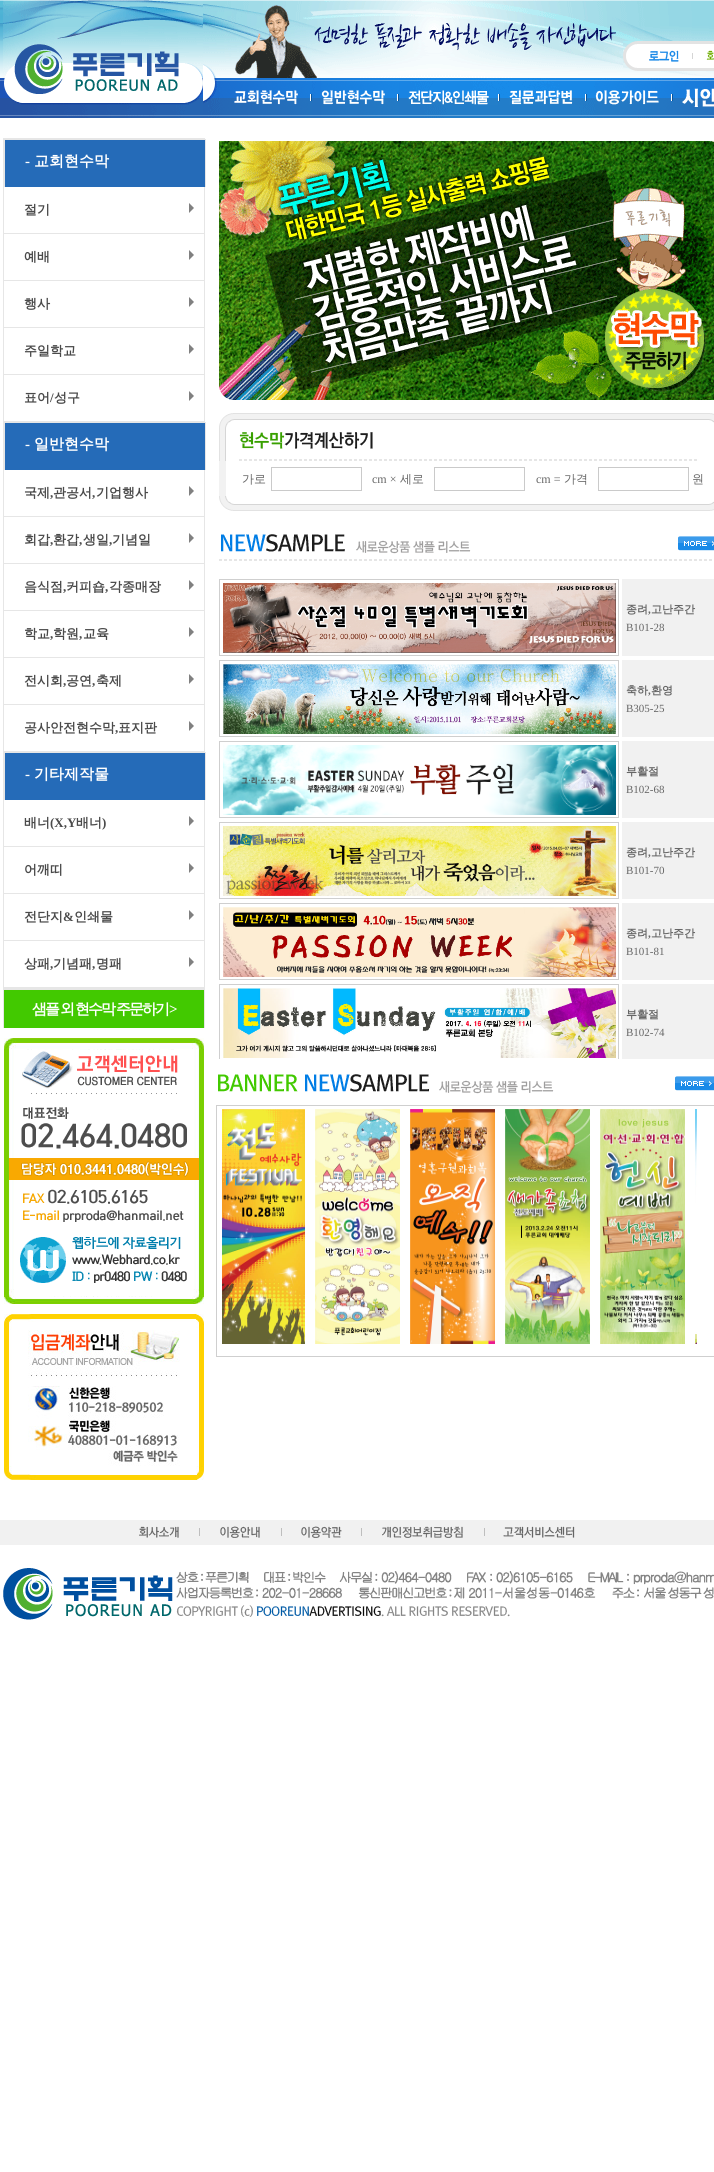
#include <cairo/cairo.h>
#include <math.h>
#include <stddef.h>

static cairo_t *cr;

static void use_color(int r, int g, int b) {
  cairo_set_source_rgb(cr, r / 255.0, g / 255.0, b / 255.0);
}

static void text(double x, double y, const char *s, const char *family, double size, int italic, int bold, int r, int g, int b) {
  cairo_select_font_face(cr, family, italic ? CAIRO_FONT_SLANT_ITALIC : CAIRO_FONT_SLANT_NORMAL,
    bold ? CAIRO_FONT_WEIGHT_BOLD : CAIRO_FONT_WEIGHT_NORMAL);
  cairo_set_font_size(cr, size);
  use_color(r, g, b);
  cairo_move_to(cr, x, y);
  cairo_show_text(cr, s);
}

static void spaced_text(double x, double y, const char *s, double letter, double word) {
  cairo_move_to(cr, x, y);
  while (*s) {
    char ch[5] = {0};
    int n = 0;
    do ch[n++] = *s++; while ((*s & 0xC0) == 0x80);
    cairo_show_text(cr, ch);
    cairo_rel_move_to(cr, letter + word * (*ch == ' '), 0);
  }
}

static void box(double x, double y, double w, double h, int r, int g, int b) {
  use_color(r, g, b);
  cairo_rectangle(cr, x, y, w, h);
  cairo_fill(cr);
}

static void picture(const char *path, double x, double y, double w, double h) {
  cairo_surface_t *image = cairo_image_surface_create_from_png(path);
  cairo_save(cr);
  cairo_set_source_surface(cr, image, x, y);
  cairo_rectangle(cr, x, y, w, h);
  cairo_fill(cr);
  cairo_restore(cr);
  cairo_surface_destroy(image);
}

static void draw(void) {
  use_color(255, 255, 255);
  cairo_paint(cr);
  picture("img_01.png", 0, 0, 3, 118);
  picture("img_02.png", 203, 0, 511, 118);
  picture("img_03.png", 3, 0, 200, 118);
  picture("img_04.png", 623, 41, 70, 30);
  picture("img_05.png", 693, 41, 21, 30);
  picture("img_06.png", 220, 78, 92, 40);
  picture("img_07.png", 321, 78, 78, 40);
  picture("img_08.png", 408, 90, 92, 15);
  picture("img_09.png", 509, 90, 78, 15);
  picture("img_10.png", 595, 80, 78, 37);
  picture("img_11.png", 673, 80, 41, 37);
  cairo_rectangle(cr, 3.5, 138.5, 201, 850);
  use_color(230, 230, 230);
  cairo_set_line_width(cr, 1);
  cairo_stroke(cr);
  box(5, 140, 200, 47, 37, 107, 184);
  box(4, 139, 202, 1, 230, 230, 230);
  box(205, 139, 1, 48, 230, 230, 230);
  box(4, 139, 1, 48, 230, 230, 230);
  box(4, 233, 200, 1, 230, 230, 230);
  use_color(128, 128, 128);
  cairo_new_path(cr);
  cairo_move_to(cr, 189, 213);
  cairo_line_to(cr, 189, 203);
  cairo_line_to(cr, 194, 208);
  cairo_close_path(cr);
  cairo_fill(cr);
  box(4, 280, 200, 1, 230, 230, 230);
  use_color(128, 128, 128);
  cairo_new_path(cr);
  cairo_move_to(cr, 189, 260);
  cairo_line_to(cr, 189, 250);
  cairo_line_to(cr, 194, 255);
  cairo_close_path(cr);
  cairo_fill(cr);
  box(4, 327, 200, 1, 230, 230, 230);
  use_color(128, 128, 128);
  cairo_new_path(cr);
  cairo_move_to(cr, 189, 307);
  cairo_line_to(cr, 189, 297);
  cairo_line_to(cr, 194, 302);
  cairo_close_path(cr);
  cairo_fill(cr);
  box(4, 374, 200, 1, 230, 230, 230);
  use_color(128, 128, 128);
  cairo_new_path(cr);
  cairo_move_to(cr, 189, 354);
  cairo_line_to(cr, 189, 344);
  cairo_line_to(cr, 194, 349);
  cairo_close_path(cr);
  cairo_fill(cr);
  box(4, 421, 200, 1, 230, 230, 230);
  use_color(128, 128, 128);
  cairo_new_path(cr);
  cairo_move_to(cr, 189, 401);
  cairo_line_to(cr, 189, 391);
  cairo_line_to(cr, 194, 396);
  cairo_close_path(cr);
  cairo_fill(cr);
  box(5, 423, 200, 47, 37, 107, 184);
  box(4, 422, 202, 1, 230, 230, 230);
  box(205, 422, 1, 48, 230, 230, 230);
  box(4, 422, 1, 48, 230, 230, 230);
  box(4, 516, 200, 1, 230, 230, 230);
  use_color(128, 128, 128);
  cairo_new_path(cr);
  cairo_move_to(cr, 189, 496);
  cairo_line_to(cr, 189, 486);
  cairo_line_to(cr, 194, 491);
  cairo_close_path(cr);
  cairo_fill(cr);
  box(4, 563, 200, 1, 230, 230, 230);
  use_color(128, 128, 128);
  cairo_new_path(cr);
  cairo_move_to(cr, 189, 543);
  cairo_line_to(cr, 189, 533);
  cairo_line_to(cr, 194, 538);
  cairo_close_path(cr);
  cairo_fill(cr);
  box(4, 610, 200, 1, 230, 230, 230);
  use_color(128, 128, 128);
  cairo_new_path(cr);
  cairo_move_to(cr, 189, 590);
  cairo_line_to(cr, 189, 580);
  cairo_line_to(cr, 194, 585);
  cairo_close_path(cr);
  cairo_fill(cr);
  box(4, 657, 200, 1, 230, 230, 230);
  use_color(128, 128, 128);
  cairo_new_path(cr);
  cairo_move_to(cr, 189, 637);
  cairo_line_to(cr, 189, 627);
  cairo_line_to(cr, 194, 632);
  cairo_close_path(cr);
  cairo_fill(cr);
  box(4, 704, 200, 1, 230, 230, 230);
  use_color(128, 128, 128);
  cairo_new_path(cr);
  cairo_move_to(cr, 189, 684);
  cairo_line_to(cr, 189, 674);
  cairo_line_to(cr, 194, 679);
  cairo_close_path(cr);
  cairo_fill(cr);
  box(4, 751, 200, 1, 230, 230, 230);
  use_color(128, 128, 128);
  cairo_new_path(cr);
  cairo_move_to(cr, 189, 731);
  cairo_line_to(cr, 189, 721);
  cairo_line_to(cr, 194, 726);
  cairo_close_path(cr);
  cairo_fill(cr);
  box(5, 753, 200, 47, 37, 107, 184);
  box(4, 752, 202, 1, 230, 230, 230);
  box(205, 752, 1, 48, 230, 230, 230);
  box(4, 752, 1, 48, 230, 230, 230);
  box(4, 846, 200, 1, 230, 230, 230);
  use_color(128, 128, 128);
  cairo_new_path(cr);
  cairo_move_to(cr, 189, 826);
  cairo_line_to(cr, 189, 816);
  cairo_line_to(cr, 194, 821);
  cairo_close_path(cr);
  cairo_fill(cr);
  box(4, 893, 200, 1, 230, 230, 230);
  use_color(128, 128, 128);
  cairo_new_path(cr);
  cairo_move_to(cr, 189, 873);
  cairo_line_to(cr, 189, 863);
  cairo_line_to(cr, 194, 868);
  cairo_close_path(cr);
  cairo_fill(cr);
  box(4, 940, 200, 1, 230, 230, 230);
  use_color(128, 128, 128);
  cairo_new_path(cr);
  cairo_move_to(cr, 189, 920);
  cairo_line_to(cr, 189, 910);
  cairo_line_to(cr, 194, 915);
  cairo_close_path(cr);
  cairo_fill(cr);
  box(4, 987, 200, 1, 230, 230, 230);
  use_color(128, 128, 128);
  cairo_new_path(cr);
  cairo_move_to(cr, 189, 967);
  cairo_line_to(cr, 189, 957);
  cairo_line_to(cr, 194, 962);
  cairo_close_path(cr);
  cairo_fill(cr);
  box(4, 990, 200, 38, 66, 201, 0);
  box(3, 989, 202, 1, 230, 230, 230);
  box(204, 989, 1, 39, 230, 230, 230);
  box(3, 989, 1, 39, 230, 230, 230);
  picture("img_12.png", 4, 1038, 200, 266);
  picture("img_13.png", 4, 1314, 200, 166);
  picture("img_14.png", 219, 141, 495, 259);
  box(219, 461, 7, 35, 242, 242, 242);
  picture("img_15.png", 219, 413, 495, 48);
  cairo_rectangle(cr, 271.5, 467.5, 90, 23);
  use_color(202, 202, 202);
  cairo_stroke(cr);
  cairo_rectangle(cr, 434.5, 467.5, 90, 23);
  cairo_stroke(cr);
  cairo_rectangle(cr, 598.5, 467.5, 90, 23);
  cairo_stroke(cr);
  picture("img_16.png", 219, 496, 495, 15);
  picture("img_17.png", 221, 534, 250, 20);
  picture("img_18.png", 678, 536, 36, 15);
  picture("img_19.png", 219, 559, 493, 2);
  cairo_rectangle(cr, 219.5, 579.5, 399, 76);
  use_color(207, 207, 207);
  cairo_stroke(cr);
  picture("img_20.png", 223, 583, 393, 70);
  box(622, 579, 92, 77, 241, 241, 241);
  cairo_rectangle(cr, 219.5, 660.5, 399, 76);
  use_color(207, 207, 207);
  cairo_stroke(cr);
  picture("img_21.png", 223, 664, 393, 70);
  box(622, 660, 92, 77, 241, 241, 241);
  cairo_rectangle(cr, 219.5, 741.5, 399, 76);
  use_color(207, 207, 207);
  cairo_stroke(cr);
  picture("img_22.png", 223, 745, 393, 70);
  box(622, 741, 92, 77, 241, 241, 241);
  cairo_rectangle(cr, 219.5, 822.5, 399, 76);
  use_color(207, 207, 207);
  cairo_stroke(cr);
  picture("img_23.png", 223, 826, 393, 70);
  box(622, 822, 92, 77, 241, 241, 241);
  cairo_rectangle(cr, 219.5, 903.5, 399, 76);
  use_color(207, 207, 207);
  cairo_stroke(cr);
  picture("img_24.png", 223, 907, 393, 70);
  box(622, 903, 92, 77, 241, 241, 241);
  cairo_save(cr);
  cairo_rectangle(cr, 219, 574, 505, 485);
  cairo_clip(cr);
  cairo_rectangle(cr, 219.5, 984.5, 399, 76);
  use_color(207, 207, 207);
  cairo_stroke(cr);
  cairo_restore(cr);
  picture("img_25.png", 223, 988, 393, 70);
  box(622, 984, 92, 75, 241, 241, 241);
  picture("img_26.png", 218, 1074, 336, 20);
  picture("img_27.png", 675, 1076, 39, 15);
  cairo_rectangle(cr, 216.5, 1105.5, 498, 251);
  use_color(207, 207, 207);
  cairo_stroke(cr);
  picture("img_28.png", 222, 1109, 475, 235);
  box(0, 1520, 714, 25, 241, 241, 241);
  picture("img_29.png", 139, 1526, 61, 12);
  picture("img_30.png", 220, 1526, 62, 12);
  picture("img_31.png", 301, 1526, 61, 12);
  picture("img_32.png", 382, 1526, 103, 12);
  picture("img_33.png", 503, 1526, 72, 12);
  picture("img_34.png", 3, 1568, 170, 52);
  picture("img_35.png", 176, 1571, 538, 46);
  text(25, 166, "-", "Liberation Serif", 15, 0, 1, 255, 255, 255);
  text(34, 166, "교회현수막", "WenQuanYi Zen Hei", 15, 0, 1, 255, 255, 255);
  text(24, 214, "절기", "WenQuanYi Zen Hei", 13, 0, 1, 74, 74, 74);
  text(24, 261, "예배", "WenQuanYi Zen Hei", 13, 0, 1, 74, 74, 74);
  text(24, 308, "행사", "WenQuanYi Zen Hei", 13, 0, 1, 74, 74, 74);
  text(24, 355, "주일학교", "WenQuanYi Zen Hei", 13, 0, 1, 74, 74, 74);
  text(24, 402, "표어 성구", "WenQuanYi Zen Hei", 13, 0, 1, 74, 74, 74);
  text(50, 402, "/", "Liberation Serif", 13, 0, 1, 74, 74, 74);
  text(25, 449, "-", "Liberation Serif", 15, 0, 1, 255, 255, 255);
  text(34, 449, "일반현수막", "WenQuanYi Zen Hei", 15, 0, 1, 255, 255, 255);
  text(24, 497, "국제", "WenQuanYi Zen Hei", 13, 0, 1, 74, 74, 74);
  text(50, 497, ",", "Liberation Serif", 13, 0, 1, 74, 74, 74);
  text(53, 497, "관공서", "WenQuanYi Zen Hei", 13, 0, 1, 74, 74, 74);
  text(92, 497, ",", "Liberation Serif", 13, 0, 1, 74, 74, 74);
  text(96, 497, "기업행사", "WenQuanYi Zen Hei", 13, 0, 1, 74, 74, 74);
  text(24, 544, "회갑", "WenQuanYi Zen Hei", 13, 0, 1, 74, 74, 74);
  text(50, 544, ",", "Liberation Serif", 13, 0, 1, 74, 74, 74);
  text(53, 544, "환갑", "WenQuanYi Zen Hei", 13, 0, 1, 74, 74, 74);
  text(79, 544, ",", "Liberation Serif", 13, 0, 1, 74, 74, 74);
  text(83, 544, "생일", "WenQuanYi Zen Hei", 13, 0, 1, 74, 74, 74);
  text(109, 544, ",", "Liberation Serif", 13, 0, 1, 74, 74, 74);
  text(112, 544, "기념일", "WenQuanYi Zen Hei", 13, 0, 1, 74, 74, 74);
  text(24, 591, "음식점", "WenQuanYi Zen Hei", 13, 0, 1, 74, 74, 74);
  text(63, 591, ",", "Liberation Serif", 13, 0, 1, 74, 74, 74);
  text(66, 591, "커피숍", "WenQuanYi Zen Hei", 13, 0, 1, 74, 74, 74);
  text(105, 591, ",", "Liberation Serif", 13, 0, 1, 74, 74, 74);
  text(109, 591, "각종매장", "WenQuanYi Zen Hei", 13, 0, 1, 74, 74, 74);
  text(24, 638, "학교", "WenQuanYi Zen Hei", 13, 0, 1, 74, 74, 74);
  text(50, 638, ",", "Liberation Serif", 13, 0, 1, 74, 74, 74);
  text(53, 638, "학원", "WenQuanYi Zen Hei", 13, 0, 1, 74, 74, 74);
  text(79, 638, ",", "Liberation Serif", 13, 0, 1, 74, 74, 74);
  text(83, 638, "교육", "WenQuanYi Zen Hei", 13, 0, 1, 74, 74, 74);
  text(24, 685, "전시회", "WenQuanYi Zen Hei", 13, 0, 1, 74, 74, 74);
  text(63, 685, ",", "Liberation Serif", 13, 0, 1, 74, 74, 74);
  text(66, 685, "공연", "WenQuanYi Zen Hei", 13, 0, 1, 74, 74, 74);
  text(92, 685, ",", "Liberation Serif", 13, 0, 1, 74, 74, 74);
  text(96, 685, "축제", "WenQuanYi Zen Hei", 13, 0, 1, 74, 74, 74);
  text(24, 732, "공사안전현수막", "WenQuanYi Zen Hei", 13, 0, 1, 74, 74, 74);
  text(115, 732, ",", "Liberation Serif", 13, 0, 1, 74, 74, 74);
  text(118, 732, "표지판", "WenQuanYi Zen Hei", 13, 0, 1, 74, 74, 74);
  text(25, 779, "-", "Liberation Serif", 15, 0, 1, 255, 255, 255);
  text(34, 779, "기타제작물", "WenQuanYi Zen Hei", 15, 0, 1, 255, 255, 255);
  text(24, 827, "배너", "WenQuanYi Zen Hei", 13, 0, 1, 74, 74, 74);
  text(50, 827, "(X,Y", "Liberation Serif", 13, 0, 1, 74, 74, 74);
  text(76, 827, "배너", "WenQuanYi Zen Hei", 13, 0, 1, 74, 74, 74);
  text(102, 827, ")", "Liberation Serif", 13, 0, 1, 74, 74, 74);
  text(24, 874, "어깨띠", "WenQuanYi Zen Hei", 13, 0, 1, 74, 74, 74);
  text(24, 921, "전단지", "WenQuanYi Zen Hei", 13, 0, 1, 74, 74, 74);
  text(63, 921, "&", "Liberation Serif", 13, 0, 1, 74, 74, 74);
  text(74, 921, "인쇄물", "WenQuanYi Zen Hei", 13, 0, 1, 74, 74, 74);
  text(24, 968, "상패", "WenQuanYi Zen Hei", 13, 0, 1, 74, 74, 74);
  text(50, 968, ",", "Liberation Serif", 13, 0, 1, 74, 74, 74);
  text(53, 968, "기념패", "WenQuanYi Zen Hei", 13, 0, 1, 74, 74, 74);
  text(92, 968, ",", "Liberation Serif", 13, 0, 1, 74, 74, 74);
  text(96, 968, "명패", "WenQuanYi Zen Hei", 13, 0, 1, 74, 74, 74);
  cairo_set_font_size(cr, 15);
  use_color(255, 255, 255);
  spaced_text(32, 1014, "샘플 외 현수막 주문하기", -2, -0.5);
  cairo_select_font_face(cr, "Liberation Serif", CAIRO_FONT_SLANT_NORMAL, CAIRO_FONT_WEIGHT_BOLD);
  spaced_text(169, 1014, ">", -2, 0);
  text(242, 483, "가로", "WenQuanYi Zen Hei Medium", 12, 0, 0, 102, 102, 102);
  text(372, 483, "cm ×", "Liberation Serif", 12, 0, 0, 102, 102, 102);
  text(400, 483, "세로", "WenQuanYi Zen Hei Medium", 12, 0, 0, 102, 102, 102);
  text(536, 483, "cm =", "Liberation Serif", 12, 0, 0, 102, 102, 102);
  text(564, 483, "가격", "WenQuanYi Zen Hei Medium", 12, 0, 0, 102, 102, 102);
  text(692, 483, "원", "WenQuanYi Zen Hei Medium", 12, 0, 0, 102, 102, 102);
  text(626, 613, "종려", "WenQuanYi Zen Hei", 11, 0, 1, 102, 102, 102);
  text(648, 613, ",", "Liberation Serif", 11, 0, 1, 102, 102, 102);
  text(651, 613, "고난주간", "WenQuanYi Zen Hei", 11, 0, 1, 102, 102, 102);
  text(626, 631, "B101-28", "Liberation Serif", 11, 0, 0, 102, 102, 102);
  text(626, 694, "축하", "WenQuanYi Zen Hei", 11, 0, 1, 102, 102, 102);
  text(648, 694, ",", "Liberation Serif", 11, 0, 1, 102, 102, 102);
  text(651, 694, "환영", "WenQuanYi Zen Hei", 11, 0, 1, 102, 102, 102);
  text(626, 712, "B305-25", "Liberation Serif", 11, 0, 0, 102, 102, 102);
  text(626, 775, "부활절", "WenQuanYi Zen Hei", 11, 0, 1, 102, 102, 102);
  text(626, 793, "B102-68", "Liberation Serif", 11, 0, 0, 102, 102, 102);
  text(626, 856, "종려", "WenQuanYi Zen Hei", 11, 0, 1, 102, 102, 102);
  text(648, 856, ",", "Liberation Serif", 11, 0, 1, 102, 102, 102);
  text(651, 856, "고난주간", "WenQuanYi Zen Hei", 11, 0, 1, 102, 102, 102);
  text(626, 874, "B101-70", "Liberation Serif", 11, 0, 0, 102, 102, 102);
  text(626, 937, "종려", "WenQuanYi Zen Hei", 11, 0, 1, 102, 102, 102);
  text(648, 937, ",", "Liberation Serif", 11, 0, 1, 102, 102, 102);
  text(651, 937, "고난주간", "WenQuanYi Zen Hei", 11, 0, 1, 102, 102, 102);
  text(626, 955, "B101-81", "Liberation Serif", 11, 0, 0, 102, 102, 102);
  text(626, 1018, "부활절", "WenQuanYi Zen Hei", 11, 0, 1, 102, 102, 102);
  text(626, 1036, "B102-74", "Liberation Serif", 11, 0, 0, 102, 102, 102);
}

int main(void) {
  cairo_surface_t *surface = cairo_image_surface_create(CAIRO_FORMAT_RGB24, 714, 2172);
  cr = cairo_create(surface);
  cairo_font_options_t *options = cairo_font_options_create();
  cairo_font_options_set_hint_metrics(options, CAIRO_HINT_METRICS_OFF);
  cairo_font_options_set_hint_style(options, CAIRO_HINT_STYLE_NONE);
  cairo_set_font_options(cr, options);
  cairo_set_miter_limit(cr, 4);
  draw();
  cairo_surface_write_to_png(surface, "out.png");
  cairo_font_options_destroy(options);
  cairo_destroy(cr);
  cairo_surface_destroy(surface);
  return 0;
}
